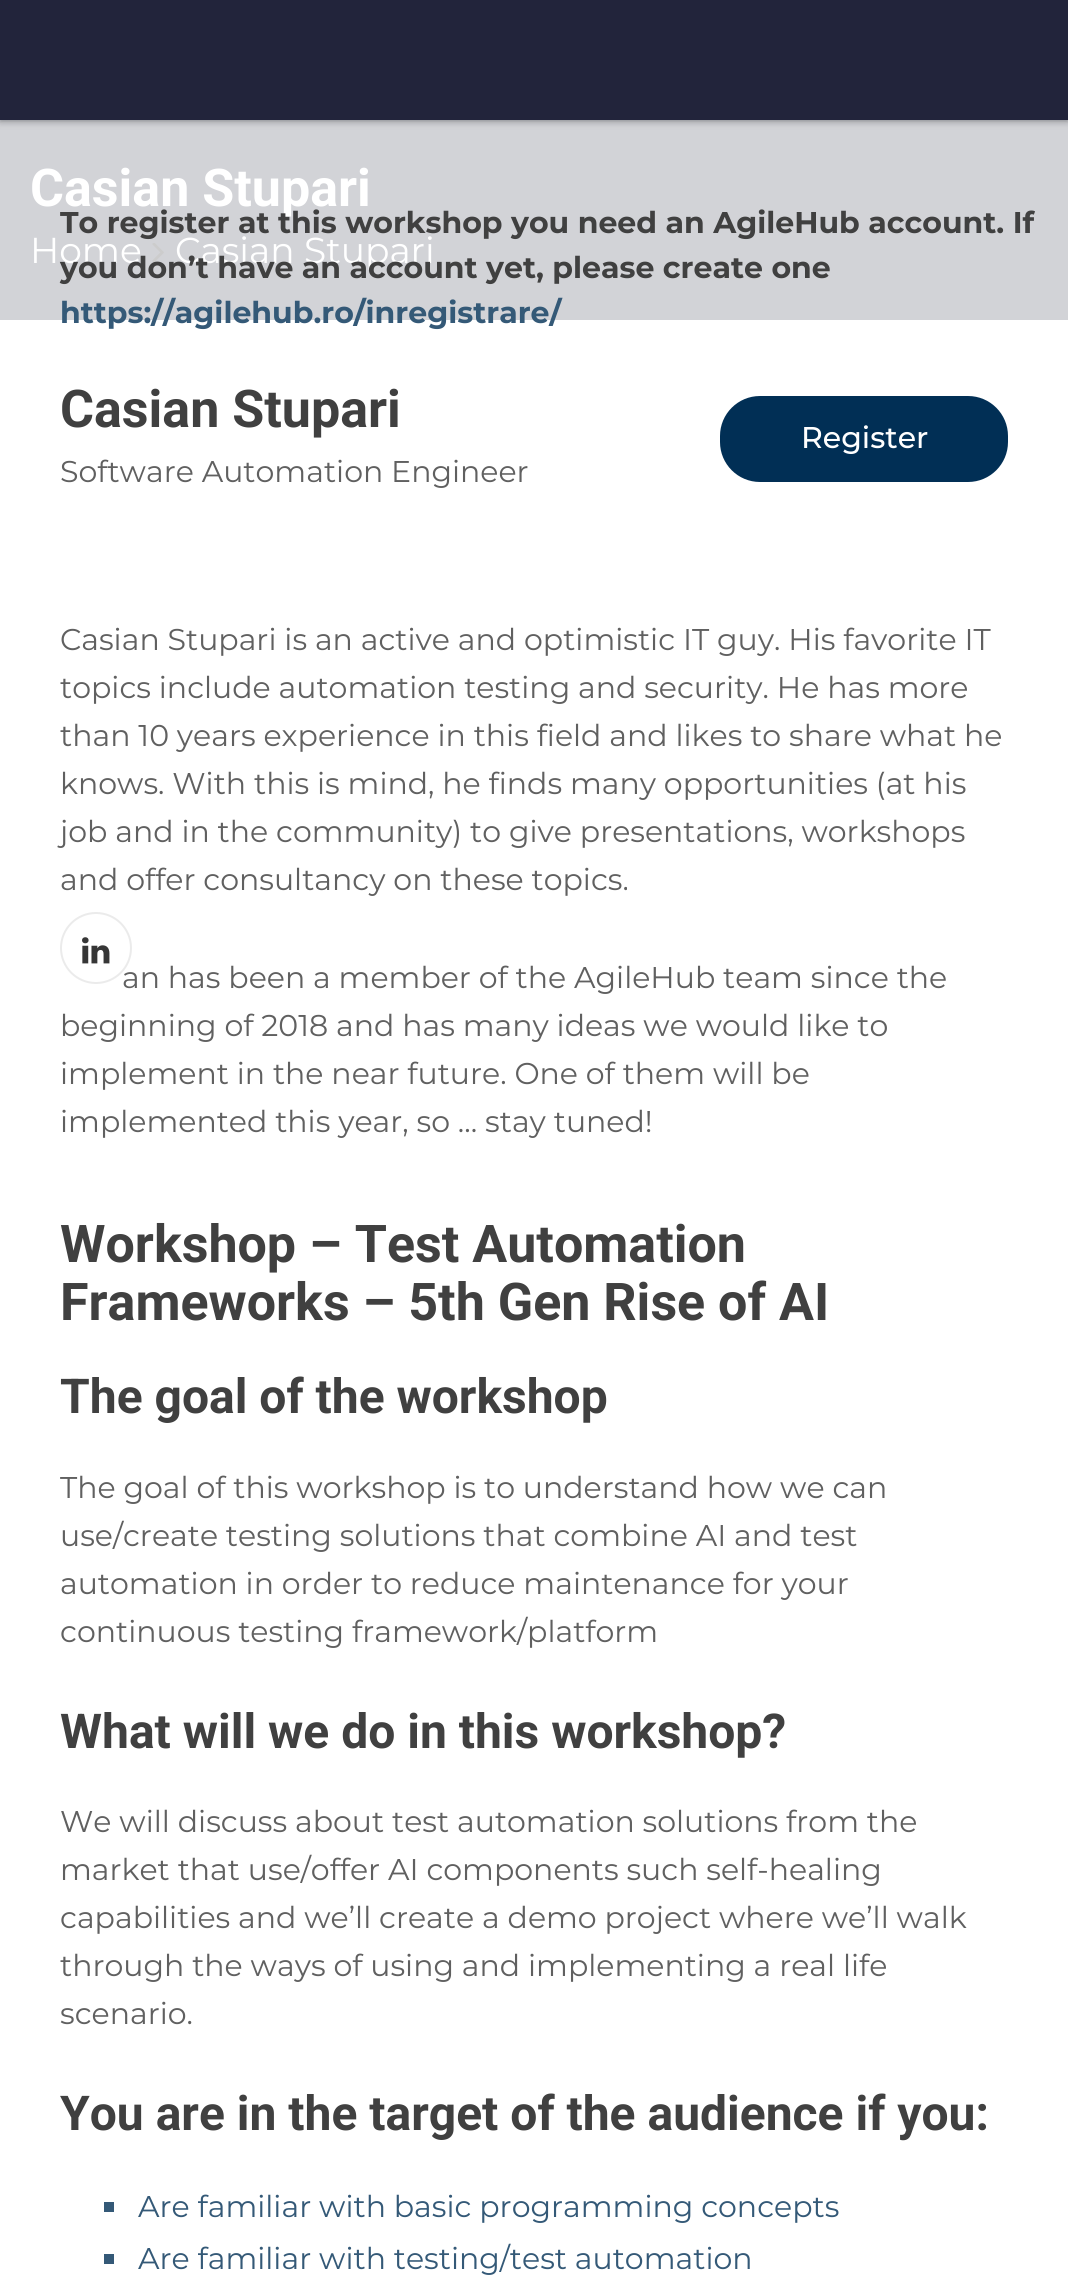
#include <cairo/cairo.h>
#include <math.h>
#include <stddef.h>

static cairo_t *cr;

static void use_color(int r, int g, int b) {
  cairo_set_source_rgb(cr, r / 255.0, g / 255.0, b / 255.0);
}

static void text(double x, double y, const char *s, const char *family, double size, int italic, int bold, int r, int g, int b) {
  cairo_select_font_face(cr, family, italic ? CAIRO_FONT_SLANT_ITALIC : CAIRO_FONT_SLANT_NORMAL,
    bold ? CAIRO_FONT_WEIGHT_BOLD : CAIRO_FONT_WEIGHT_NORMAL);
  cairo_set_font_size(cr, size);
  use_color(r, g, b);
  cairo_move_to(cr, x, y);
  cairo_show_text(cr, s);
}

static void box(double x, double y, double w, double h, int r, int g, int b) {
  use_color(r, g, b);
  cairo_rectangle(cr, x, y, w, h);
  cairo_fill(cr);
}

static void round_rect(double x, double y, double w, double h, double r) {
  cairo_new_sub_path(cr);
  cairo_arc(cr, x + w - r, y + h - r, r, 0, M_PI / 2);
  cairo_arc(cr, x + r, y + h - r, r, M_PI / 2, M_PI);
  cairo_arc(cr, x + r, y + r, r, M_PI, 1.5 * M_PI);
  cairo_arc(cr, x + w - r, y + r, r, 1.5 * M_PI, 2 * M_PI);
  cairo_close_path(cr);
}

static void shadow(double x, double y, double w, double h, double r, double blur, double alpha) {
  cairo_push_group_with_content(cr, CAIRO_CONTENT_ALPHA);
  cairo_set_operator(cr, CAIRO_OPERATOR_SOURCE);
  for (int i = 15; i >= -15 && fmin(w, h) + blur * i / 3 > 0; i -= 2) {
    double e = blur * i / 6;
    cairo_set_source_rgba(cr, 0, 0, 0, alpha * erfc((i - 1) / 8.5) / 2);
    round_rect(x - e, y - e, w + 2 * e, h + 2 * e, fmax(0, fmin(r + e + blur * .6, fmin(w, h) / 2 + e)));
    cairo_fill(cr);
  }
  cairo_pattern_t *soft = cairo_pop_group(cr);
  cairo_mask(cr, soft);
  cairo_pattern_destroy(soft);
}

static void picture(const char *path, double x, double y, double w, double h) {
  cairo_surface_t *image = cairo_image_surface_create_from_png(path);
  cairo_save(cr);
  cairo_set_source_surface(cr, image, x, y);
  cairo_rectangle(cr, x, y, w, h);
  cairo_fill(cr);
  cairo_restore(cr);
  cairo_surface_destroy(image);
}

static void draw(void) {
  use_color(255, 255, 255);
  cairo_paint(cr);
  box(0, 120, 1068, 200, 210, 211, 215);
  use_color(6, 7, 11);
  shadow(0, 0, 1068, 120, 0, 4, 0.5);
  box(0, 0, 1068, 120, 34, 36, 59);
  picture("img_01.png", 152, 243, 12, 19);
  use_color(1, 47, 85);
  round_rect(720, 396, 288, 86, 40);
  cairo_fill(cr);
  box(104, 2202, 10, 10, 52, 89, 119);
  box(104, 2254, 10, 10, 52, 89, 119);
  text(30, 206, "Casian Stupari", "Roboto", 52, 0, 1, 255, 255, 255);
  text(30, 263, "Home", "Montserrat", 36, 0, 0, 255, 255, 255);
  text(175, 263, "Casian Stupari", "Montserrat", 36, 0, 0, 255, 255, 255);
  text(60, 233, "To register at this workshop you need an AgileHub account. If", "Montserrat", 30, 0, 1, 64, 64, 64);
  text(60, 278, "you don’t have an account yet, please create one", "Montserrat", 30, 0, 1, 64, 64, 64);
  text(60, 323, "https://agilehub.ro/inregistrare/", "Montserrat", 30, 0, 1, 52, 89, 119);
  text(60, 427, "Casian Stupari", "Roboto", 52, 0, 1, 64, 64, 64);
  text(801, 448, "Register", "Montserrat Medium", 30, 0, 0, 255, 255, 255);
  text(60, 482, "Software Automation Engineer", "Montserrat", 30, 0, 0, 96, 96, 96);
  text(60, 650, "Casian Stupari is an active and optimistic IT guy. His favorite IT", "Montserrat", 30, 0, 0, 96, 96, 96);
  text(60, 698, "topics include automation testing and security. He has more", "Montserrat", 30, 0, 0, 96, 96, 96);
  text(60, 746, "than 10 years experience in this field and likes to share what he", "Montserrat", 30, 0, 0, 96, 96, 96);
  text(60, 794, "knows. With this is mind, he finds many opportunities (at his", "Montserrat", 30, 0, 0, 96, 96, 96);
  text(60, 842, "job and in the community) to give presentations, workshops", "Montserrat", 30, 0, 0, 96, 96, 96);
  text(60, 890, "and offer consultancy on these topics.", "Montserrat", 30, 0, 0, 96, 96, 96);
  text(122, 988, "an has been a member of the AgileHub team since the", "Montserrat", 30, 0, 0, 96, 96, 96);
  cairo_new_path(cr);
  cairo_arc(cr, 96, 948, 35, 0, 2 * M_PI);
  use_color(235, 235, 235);
  cairo_stroke(cr);
  picture("img_02.png", 82, 937, 28, 27);
  text(60, 1036, "beginning of 2018 and has many ideas we would like to", "Montserrat", 30, 0, 0, 96, 96, 96);
  text(60, 1084, "implement in the near future. One of them will be", "Montserrat", 30, 0, 0, 96, 96, 96);
  text(60, 1132, "implemented this year, so … stay tuned!", "Montserrat", 30, 0, 0, 96, 96, 96);
  text(60, 1262, "Workshop – Test Automation", "Roboto", 52, 0, 1, 64, 64, 64);
  text(60, 1320, "Frameworks – 5th Gen Rise of AI", "Roboto", 52, 0, 1, 64, 64, 64);
  text(60, 1413, "The goal of the workshop", "Roboto", 48, 0, 1, 64, 64, 64);
  text(60, 1498, "The goal of this workshop is to understand how we can", "Montserrat", 30, 0, 0, 96, 96, 96);
  text(60, 1546, "use/create testing solutions that combine AI and test", "Montserrat", 30, 0, 0, 96, 96, 96);
  text(60, 1594, "automation in order to reduce maintenance for your", "Montserrat", 30, 0, 0, 96, 96, 96);
  text(60, 1642, "continuous testing framework/platform", "Montserrat", 30, 0, 0, 96, 96, 96);
  text(60, 1748, "What will we do in this workshop?", "Roboto", 48, 0, 1, 64, 64, 64);
  text(60, 1832, "We will discuss about test automation solutions from the", "Montserrat", 30, 0, 0, 96, 96, 96);
  text(60, 1880, "market that use/offer AI components such self-healing", "Montserrat", 30, 0, 0, 96, 96, 96);
  text(60, 1928, "capabilities and we’ll create a demo project where we’ll walk", "Montserrat", 30, 0, 0, 96, 96, 96);
  text(60, 1976, "through the ways of using and implementing a real life", "Montserrat", 30, 0, 0, 96, 96, 96);
  text(60, 2024, "scenario.", "Montserrat", 30, 0, 0, 96, 96, 96);
  text(60, 2130, "You are in the target of the audience if you:", "Roboto", 48, 0, 1, 64, 64, 64);
  text(138, 2217, "Are familiar with basic programming concepts", "Montserrat", 30, 0, 0, 52, 89, 119);
  text(138, 2269, "Are familiar with testing/test automation", "Montserrat", 30, 0, 0, 52, 89, 119);
}

int main(void) {
  cairo_surface_t *surface = cairo_image_surface_create(CAIRO_FORMAT_RGB24, 1068, 2288);
  cr = cairo_create(surface);
  cairo_font_options_t *options = cairo_font_options_create();
  cairo_font_options_set_hint_metrics(options, CAIRO_HINT_METRICS_OFF);
  cairo_font_options_set_hint_style(options, CAIRO_HINT_STYLE_NONE);
  cairo_set_font_options(cr, options);
  cairo_set_miter_limit(cr, 4);
  draw();
  cairo_surface_write_to_png(surface, "out.png");
  cairo_font_options_destroy(options);
  cairo_destroy(cr);
  cairo_surface_destroy(surface);
  return 0;
}
